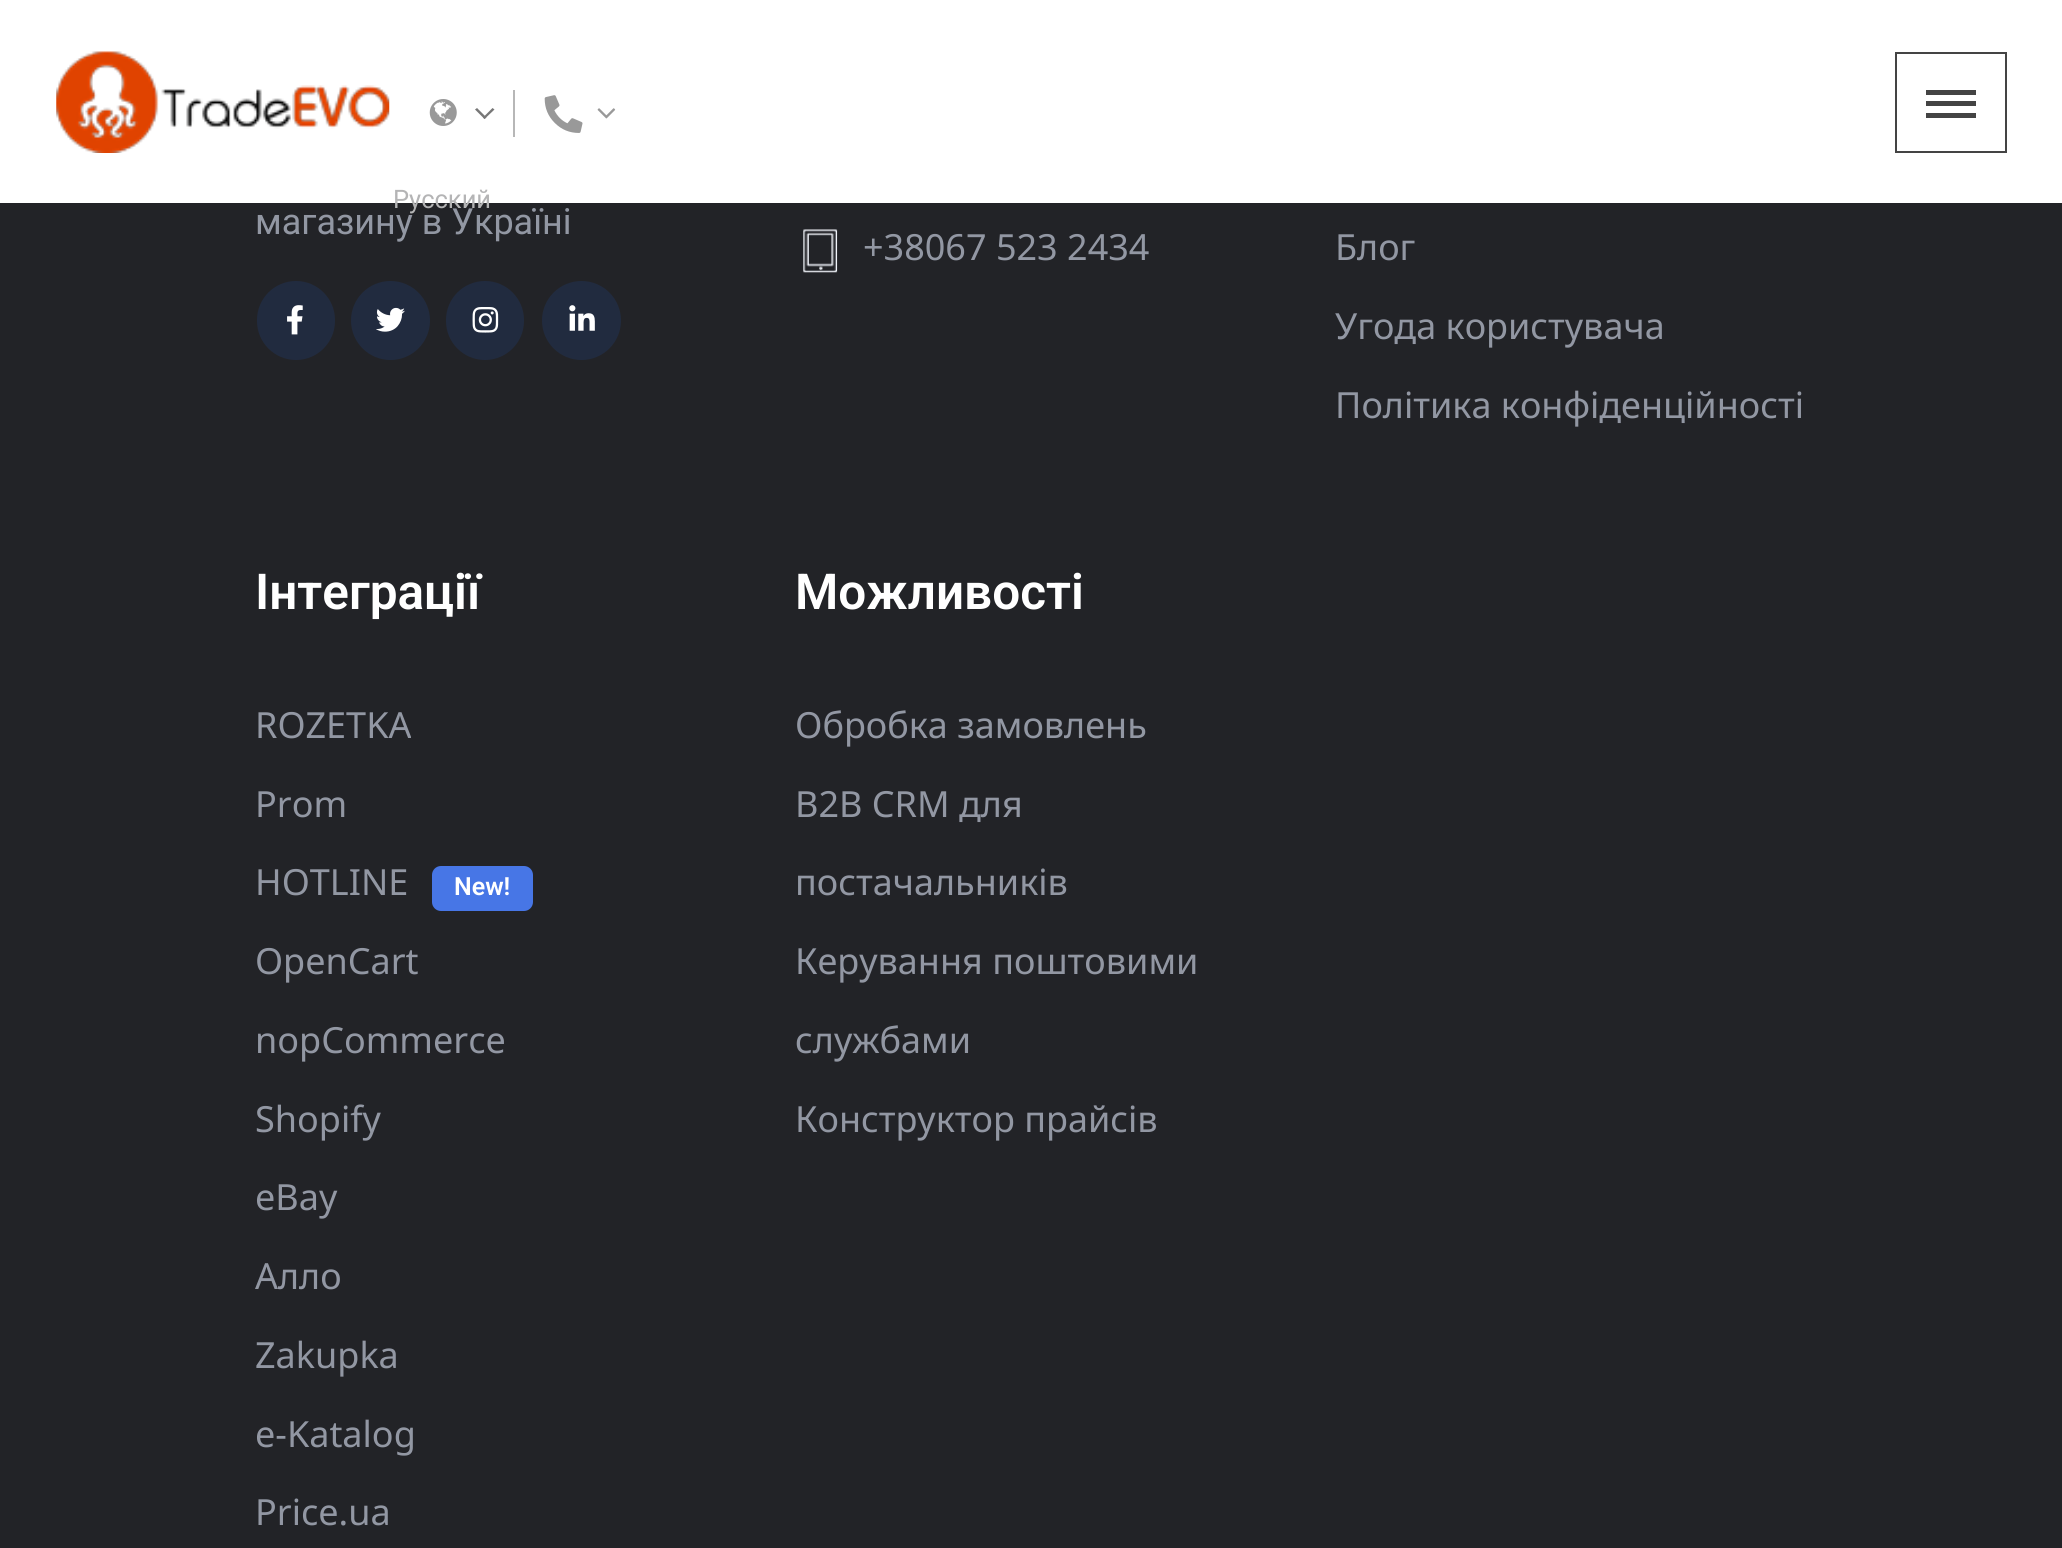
#include <cairo/cairo.h>
#include <math.h>
#include <stddef.h>

static cairo_t *cr;

static void use_color(int r, int g, int b) {
  cairo_set_source_rgb(cr, r / 255.0, g / 255.0, b / 255.0);
}

static void text(double x, double y, const char *s, const char *family, double size, int italic, int bold, int r, int g, int b) {
  cairo_select_font_face(cr, family, italic ? CAIRO_FONT_SLANT_ITALIC : CAIRO_FONT_SLANT_NORMAL,
    bold ? CAIRO_FONT_WEIGHT_BOLD : CAIRO_FONT_WEIGHT_NORMAL);
  cairo_set_font_size(cr, size);
  use_color(r, g, b);
  cairo_move_to(cr, x, y);
  cairo_show_text(cr, s);
}

static void box(double x, double y, double w, double h, int r, int g, int b) {
  use_color(r, g, b);
  cairo_rectangle(cr, x, y, w, h);
  cairo_fill(cr);
}

static void round_rect(double x, double y, double w, double h, double r) {
  cairo_new_sub_path(cr);
  cairo_arc(cr, x + w - r, y + h - r, r, 0, M_PI / 2);
  cairo_arc(cr, x + r, y + h - r, r, M_PI / 2, M_PI);
  cairo_arc(cr, x + r, y + r, r, M_PI, 1.5 * M_PI);
  cairo_arc(cr, x + w - r, y + r, r, 1.5 * M_PI, 2 * M_PI);
  cairo_close_path(cr);
}

static void picture(const char *path, double x, double y, double w, double h) {
  cairo_surface_t *image = cairo_image_surface_create_from_png(path);
  cairo_save(cr);
  cairo_set_source_surface(cr, image, x, y);
  cairo_rectangle(cr, x, y, w, h);
  cairo_fill(cr);
  cairo_restore(cr);
  cairo_surface_destroy(image);
}

static void draw(void) {
  use_color(34, 35, 39);
  cairo_paint(cr);
  box(0, 0, 2062, 203, 255, 255, 255);
  cairo_rectangle(cr, 1896, 53, 110, 99);
  use_color(68, 68, 68);
  cairo_stroke(cr);
  box(1926, 90, 50, 5, 68, 68, 68);
  box(1926, 101, 50, 5, 68, 68, 68);
  box(1926, 113, 50, 5, 68, 68, 68);
  picture("img_01.png", 56, 51, 334, 102);
  picture("img_02.png", 544, 95, 39, 38);
  picture("img_03.png", 597, 108, 19, 11);
  box(513, 90, 2, 47, 183, 183, 183);
  picture("img_04.png", 429, 99, 28, 27);
  use_color(119, 119, 119);
  cairo_new_path(cr);
  cairo_move_to(cr, 492.5, 108);
  cairo_line_to(cr, 494.5, 109.5);
  cairo_line_to(cr, 484.5, 119);
  cairo_line_to(cr, 483, 117.5);
  cairo_close_path(cr);
  cairo_fill(cr);
  cairo_new_path(cr);
  cairo_move_to(cr, 477, 108);
  cairo_line_to(cr, 486.5, 117.5);
  cairo_line_to(cr, 484.5, 119);
  cairo_line_to(cr, 475, 109.5);
  cairo_close_path(cr);
  cairo_fill(cr);
  use_color(33, 43, 63);
  round_rect(257, 281, 78, 79, 39);
  cairo_fill(cr);
  picture("img_05.png", 287, 305, 16, 30);
  cairo_arc(cr, 390.5, 320.5, 39.5, 0, 2 * M_PI);
  cairo_fill(cr);
  picture("img_06.png", 376, 307, 29, 25);
  round_rect(446, 281, 78, 79, 39);
  cairo_fill(cr);
  picture("img_07.png", 472, 307, 27, 26);
  cairo_arc(cr, 581.5, 320.5, 39.5, 0, 2 * M_PI);
  cairo_fill(cr);
  picture("img_08.png", 569, 305, 26, 26);
  picture("img_09.png", 803, 229, 35, 44);
  use_color(71, 118, 230);
  round_rect(432, 866, 101, 45, 9);
  cairo_fill(cr);
  text(393, 208, "Русский", "Roboto", 25.5, 0, 0, 180, 180, 181);
  text(255, 234, "магазину в Україні", "Roboto", 36, 0, 0, 146, 151, 163);
  text(863, 260, "+38067 523 2434", "Noto Sans", 36, 0, 0, 146, 151, 163);
  text(1335, 260, "Блог", "Noto Sans", 36, 0, 0, 146, 151, 163);
  text(1335, 339, "Угода користувача", "Noto Sans", 36, 0, 0, 146, 151, 163);
  text(1335, 418, "Політика конфіденційності", "Noto Sans", 36, 0, 0, 146, 151, 163);
  text(255, 609, "Інтеграції", "Roboto SemiBold", 49.5, 0, 0, 255, 255, 255);
  text(255, 738, "ROZETKA", "Noto Sans", 36, 0, 0, 146, 151, 163);
  text(255, 817, "Prom", "Noto Sans", 36, 0, 0, 146, 151, 163);
  text(255, 895, "HOTLINE", "Noto Sans", 36, 0, 0, 146, 151, 163);
  text(454, 895, "New!", "Roboto SemiBold", 25, 0, 0, 255, 255, 255);
  text(255, 974, "OpenCart", "Noto Sans", 36, 0, 0, 146, 151, 163);
  text(255, 1053, "nopCommerce", "Noto Sans", 36, 0, 0, 146, 151, 163);
  text(255, 1132, "Shopify", "Noto Sans", 36, 0, 0, 146, 151, 163);
  text(255, 1210, "eBay", "Noto Sans", 36, 0, 0, 146, 151, 163);
  text(255, 1289, "Алло", "Noto Sans", 36, 0, 0, 146, 151, 163);
  text(255, 1368, "Zakupka", "Noto Sans", 36, 0, 0, 146, 151, 163);
  text(255, 1447, "e-Katalog", "Noto Sans", 36, 0, 0, 146, 151, 163);
  text(255, 1525, "Price.ua", "Noto Sans", 36, 0, 0, 146, 151, 163);
  text(795, 609, "Можливості", "Roboto SemiBold", 49.5, 0, 0, 255, 255, 255);
  text(795, 738, "Обробка замовлень", "Noto Sans", 36, 0, 0, 146, 151, 163);
  text(795, 817, "B2B CRM для", "Noto Sans", 36, 0, 0, 146, 151, 163);
  text(795, 895, "постачальників", "Noto Sans", 36, 0, 0, 146, 151, 163);
  text(795, 974, "Керування поштовими", "Noto Sans", 36, 0, 0, 146, 151, 163);
  text(795, 1053, "службами", "Noto Sans", 36, 0, 0, 146, 151, 163);
  text(795, 1132, "Конструктор прайсів", "Noto Sans", 36, 0, 0, 146, 151, 163);
}

int main(void) {
  cairo_surface_t *surface = cairo_image_surface_create(CAIRO_FORMAT_RGB24, 2062, 1548);
  cr = cairo_create(surface);
  cairo_font_options_t *options = cairo_font_options_create();
  cairo_font_options_set_hint_metrics(options, CAIRO_HINT_METRICS_OFF);
  cairo_font_options_set_hint_style(options, CAIRO_HINT_STYLE_NONE);
  cairo_set_font_options(cr, options);
  cairo_set_miter_limit(cr, 4);
  draw();
  cairo_surface_write_to_png(surface, "out.png");
  cairo_font_options_destroy(options);
  cairo_destroy(cr);
  cairo_surface_destroy(surface);
  return 0;
}
